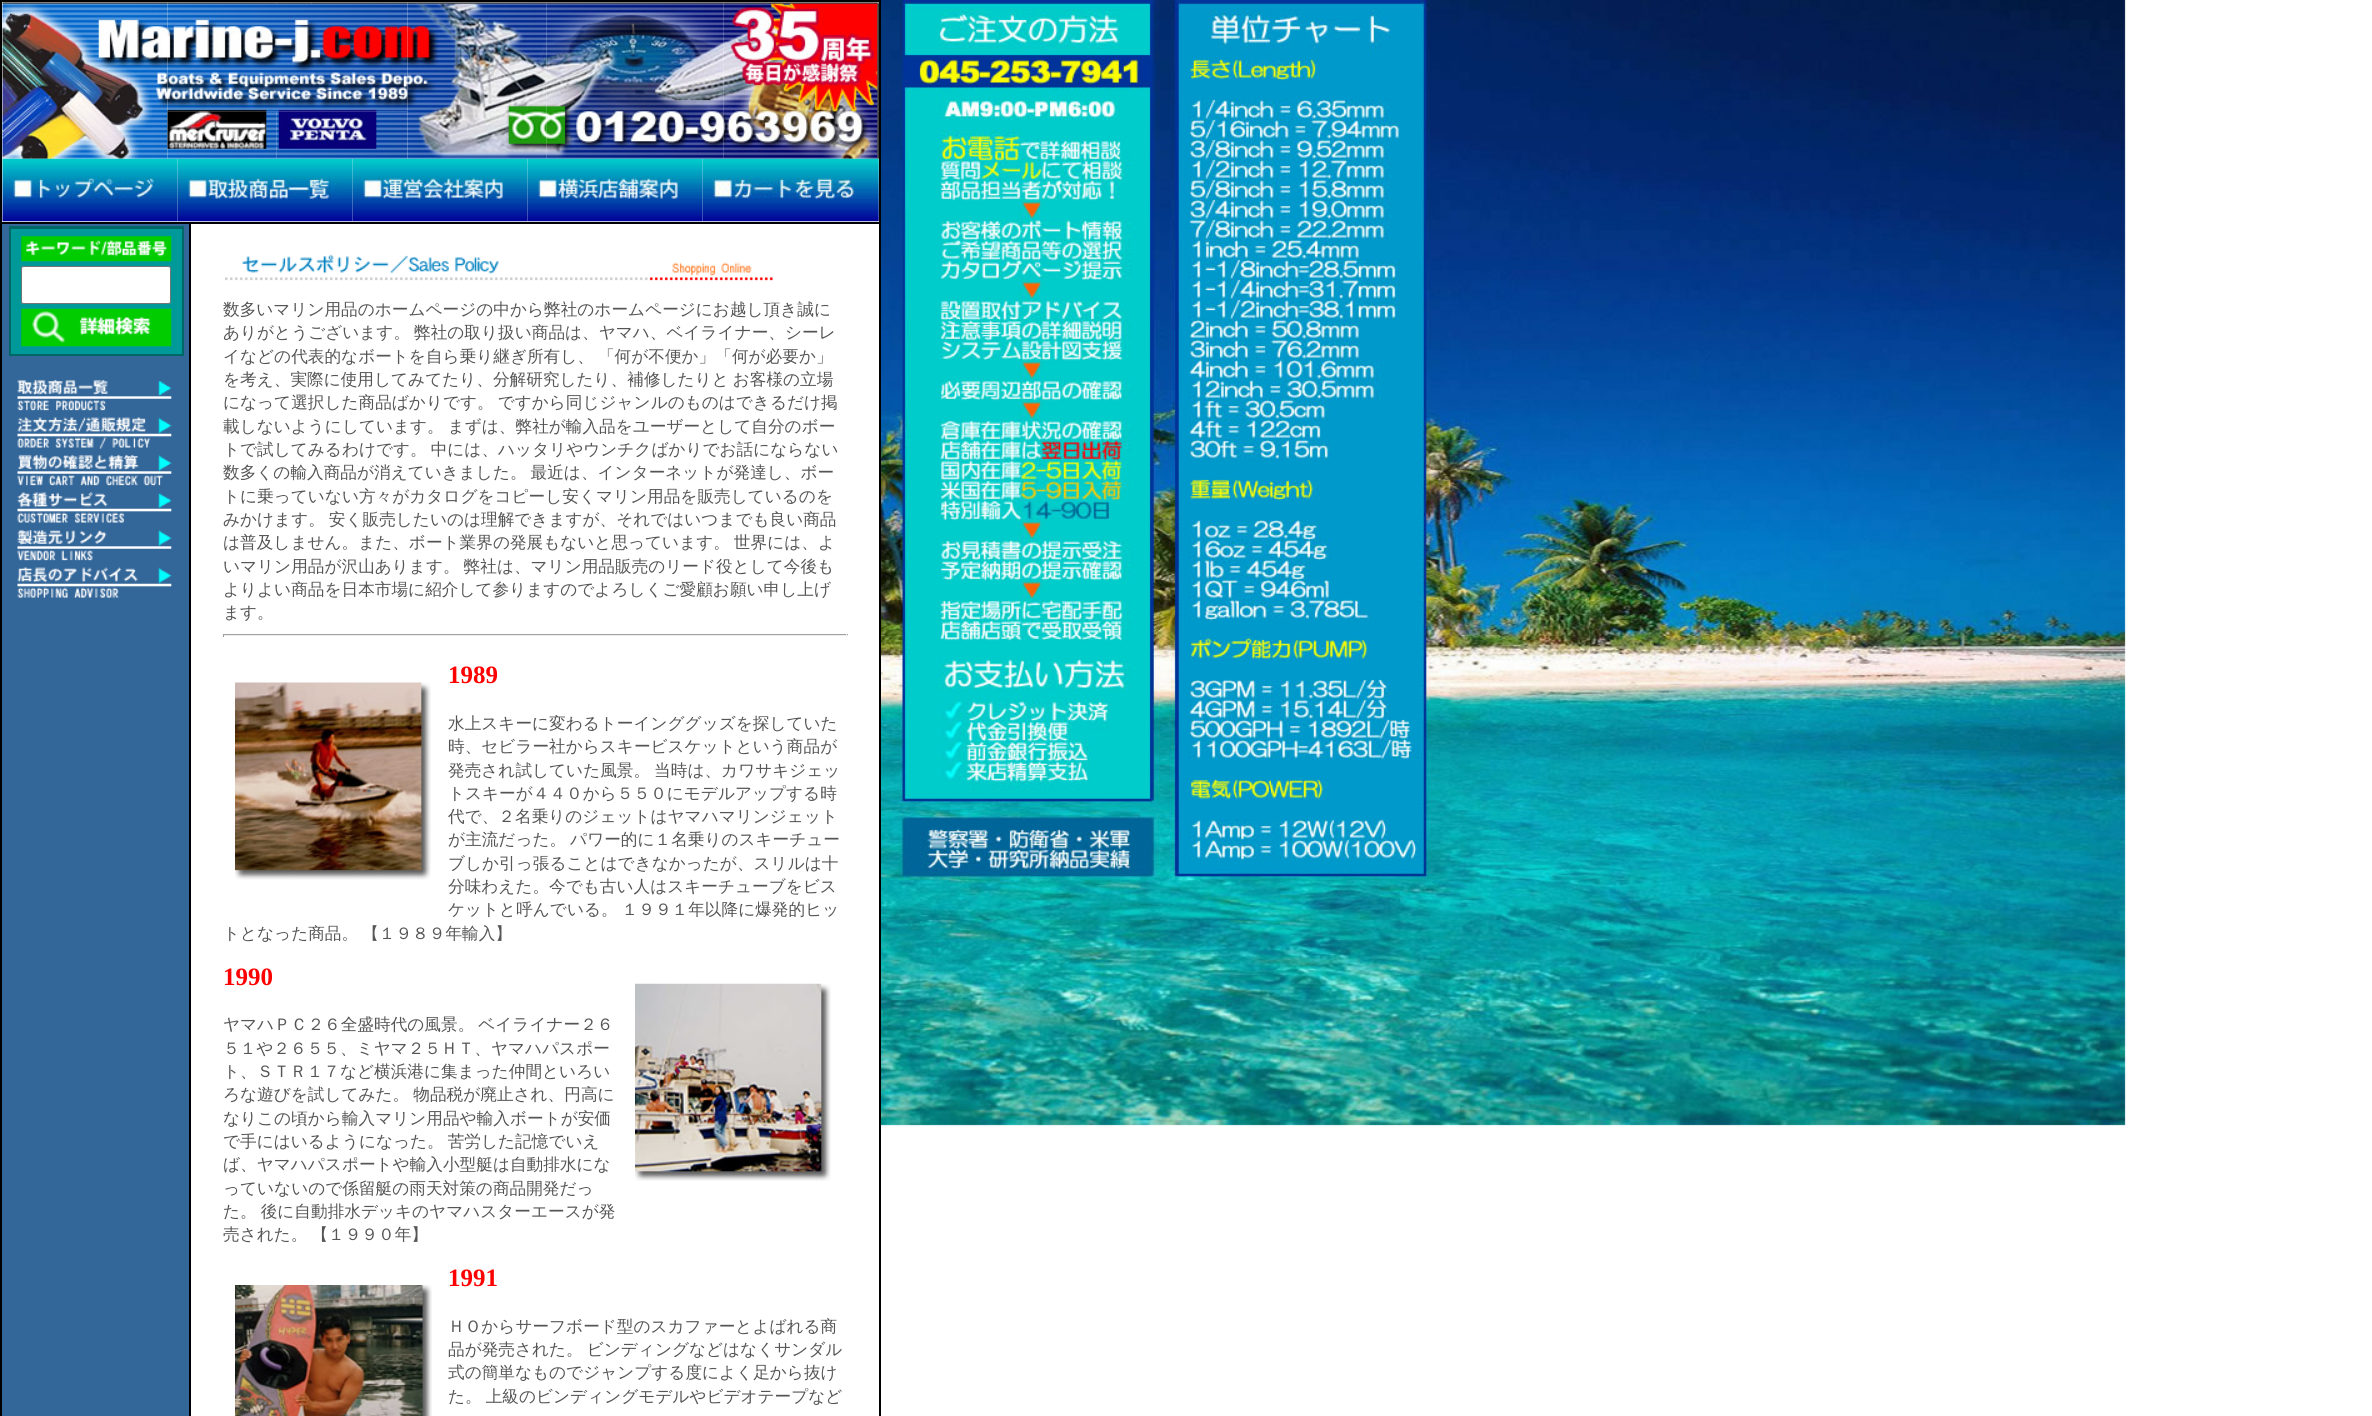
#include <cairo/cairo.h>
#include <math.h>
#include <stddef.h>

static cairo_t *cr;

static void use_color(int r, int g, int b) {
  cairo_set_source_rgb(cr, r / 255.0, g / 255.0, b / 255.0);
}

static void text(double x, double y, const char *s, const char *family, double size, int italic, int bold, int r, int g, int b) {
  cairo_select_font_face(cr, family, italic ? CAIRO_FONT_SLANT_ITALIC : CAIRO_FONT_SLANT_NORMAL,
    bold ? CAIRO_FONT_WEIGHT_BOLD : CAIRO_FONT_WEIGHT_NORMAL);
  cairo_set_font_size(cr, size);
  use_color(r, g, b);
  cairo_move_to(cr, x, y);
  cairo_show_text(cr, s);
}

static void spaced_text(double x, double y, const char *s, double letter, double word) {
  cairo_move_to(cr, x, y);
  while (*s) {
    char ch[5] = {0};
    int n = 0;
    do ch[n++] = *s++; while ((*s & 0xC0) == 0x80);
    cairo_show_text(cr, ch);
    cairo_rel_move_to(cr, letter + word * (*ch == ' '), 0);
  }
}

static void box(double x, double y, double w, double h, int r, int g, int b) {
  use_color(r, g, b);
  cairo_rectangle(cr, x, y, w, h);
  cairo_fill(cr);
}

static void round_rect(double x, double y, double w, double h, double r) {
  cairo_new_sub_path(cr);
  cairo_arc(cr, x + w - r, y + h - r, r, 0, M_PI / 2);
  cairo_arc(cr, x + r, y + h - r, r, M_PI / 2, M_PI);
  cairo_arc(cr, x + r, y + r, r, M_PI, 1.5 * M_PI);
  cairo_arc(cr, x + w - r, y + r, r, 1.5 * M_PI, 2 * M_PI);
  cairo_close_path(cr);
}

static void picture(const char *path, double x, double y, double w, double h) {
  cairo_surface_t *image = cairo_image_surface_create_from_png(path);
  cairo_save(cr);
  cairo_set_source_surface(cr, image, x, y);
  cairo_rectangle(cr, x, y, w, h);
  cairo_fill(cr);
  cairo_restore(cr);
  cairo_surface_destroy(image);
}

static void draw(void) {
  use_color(255, 255, 255);
  cairo_paint(cr);
  picture("img_01.png", 881, 0, 1245, 1126);
  cairo_rectangle(cr, 0.5, 0.5, 880, 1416);
  use_color(0, 0, 0);
  cairo_set_line_width(cr, 1);
  cairo_stroke(cr);
  cairo_rectangle(cr, 1.5, 1.5, 878, 221);
  cairo_stroke(cr);
  picture("img_02.png", 2, 2, 166, 2);
  picture("img_03.png", 167, 2, 110, 2);
  picture("img_04.png", 276, 2, 36, 2);
  picture("img_05.png", 311, 2, 97, 2);
  picture("img_06.png", 407, 2, 140, 2);
  picture("img_07.png", 546, 2, 178, 2);
  picture("img_08.png", 723, 2, 155, 2);
  picture("img_09.png", 877, 2, 2, 2);
  picture("img_10.png", 2, 3, 166, 156);
  picture("img_11.png", 167, 3, 241, 109);
  picture("img_12.png", 407, 3, 140, 156);
  picture("img_13.png", 546, 3, 178, 156);
  picture("img_14.png", 723, 3, 155, 156);
  picture("img_15.png", 877, 3, 2, 109);
  picture("img_16.png", 167, 111, 110, 48);
  picture("img_17.png", 276, 111, 132, 48);
  picture("img_18.png", 877, 111, 2, 48);
  picture("img_19.png", 2, 158, 176, 64);
  picture("img_20.png", 177, 158, 176, 64);
  picture("img_21.png", 352, 158, 176, 64);
  picture("img_22.png", 527, 158, 176, 64);
  picture("img_23.png", 702, 158, 177, 64);
  use_color(51, 102, 153);
  cairo_rectangle(cr, 1.5, 223.5, 188, 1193);
  cairo_fill_preserve(cr);
  use_color(0, 0, 0);
  cairo_stroke(cr);
  box(9, 226, 175, 130, 0, 102, 102);
  box(11, 229, 171, 125, 0, 153, 153);
  picture("img_24.png", 21, 236, 151, 26);
  use_color(255, 255, 255);
  round_rect(21.5, 266.5, 149, 37, 2);
  cairo_fill_preserve(cr);
  use_color(118, 118, 118);
  cairo_stroke(cr);
  picture("img_25.png", 21, 308, 151, 39);
  picture("img_26.png", 17, 379, 155, 32);
  picture("img_27.png", 17, 417, 155, 32);
  picture("img_28.png", 17, 454, 155, 32);
  picture("img_29.png", 17, 492, 155, 31);
  picture("img_30.png", 17, 529, 155, 32);
  picture("img_31.png", 17, 567, 155, 31);
  cairo_rectangle(cr, 190.5, 223.5, 689, 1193);
  use_color(0, 0, 0);
  cairo_stroke(cr);
  picture("img_32.png", 225, 254, 548, 27);
  box(223, 634, 625, 1, 159, 159, 159);
  box(846, 634, 1, 3, 238, 238, 238);
  box(223, 635, 625, 1, 238, 238, 238);
  box(223, 634, 1, 3, 159, 159, 159);
  picture("img_33.png", 235, 682, 196, 198);
  picture("img_34.png", 635, 983, 196, 198);
  picture("img_35.png", 235, 1285, 197, 131);
  text(223, 315, "数多いマリン用品のホームページの中から弊社のホームページにお越し頂き誠に", "WenQuanYi Zen Hei Medium", 16.65, 0, 0, 85, 85, 85);
  spaced_text(223, 338, "ありがとうございます。 弊社の取り扱い商品は、ヤマハ、ベイライナー、シーレ", 0, -1);
  spaced_text(223, 362, "イなどの代表的なボートを自ら乗り継ぎ所有し、 「何が不便か」「何が必要か」", 0, -1);
  spaced_text(223, 385, "を考え、実際に使用してみてたり、分解研究したり、補修したりと お客様の立場", 0, -1);
  spaced_text(223, 408, "になって選択した商品ばかりです。 ですから同じジャンルのものはできるだけ掲", 0, -1);
  spaced_text(223, 432, "載しないようにしています。 まずは、弊社が輸入品をユーザーとして自分のボー", 0, -1);
  spaced_text(223, 455, "トで試してみるわけです。 中には、ハッタリやウンチクばかりでお話にならない", 0, -1);
  spaced_text(223, 478, "数多くの輸入商品が消えていきました。 最近は、インターネットが発達し、ボー", 0, -1);
  text(223, 502, "トに乗っていない方々がカタログをコピーし安くマリン用品を販売しているのを", "WenQuanYi Zen Hei Medium", 16.65, 0, 0, 85, 85, 85);
  spaced_text(223, 525, "みかけます。 安く販売したいのは理解できますが、それではいつまでも良い商品", 0, -1);
  spaced_text(223, 548, "は普及しません。また、ボート業界の発展もないと思っています。 世界には、よ", 0, -1);
  spaced_text(223, 572, "いマリン用品が沢山あります。 弊社は、マリン用品販売のリード役として今後も", 0, -1);
  text(223, 595, "よりよい商品を日本市場に紹介して参りますのでよろしくご愛顧お願い申し上げ", "WenQuanYi Zen Hei Medium", 16.65, 0, 0, 85, 85, 85);
  text(223, 618, "ます。", "WenQuanYi Zen Hei Medium", 16.65, 0, 0, 85, 85, 85);
  text(448, 683, "1989", "Liberation Serif", 25, 0, 1, 255, 0, 0);
  text(448, 729, "水上スキーに変わるトーインググッズを探していた", "WenQuanYi Zen Hei Medium", 16.65, 0, 0, 85, 85, 85);
  text(448, 752, "時、セビラー社からスキービスケットという商品が", "WenQuanYi Zen Hei Medium", 16.65, 0, 0, 85, 85, 85);
  spaced_text(448, 776, "発売され試していた風景。 当時は、カワサキジェッ", 0, -1);
  text(448, 799, "トスキーが４４０から５５０にモデルアップする時", "WenQuanYi Zen Hei Medium", 16.65, 0, 0, 85, 85, 85);
  text(448, 822, "代で、２名乗りのジェットはヤマハマリンジェット", "WenQuanYi Zen Hei Medium", 16.65, 0, 0, 85, 85, 85);
  spaced_text(448, 845, "が主流だった。 パワー的に１名乗りのスキーチュー", 0, -1);
  text(448, 869, "ブしか引っ張ることはできなかったが、スリルは十", "WenQuanYi Zen Hei Medium", 16.65, 0, 0, 85, 85, 85);
  text(448, 892, "分味わえた。今でも古い人はスキーチューブをビス", "WenQuanYi Zen Hei Medium", 16.65, 0, 0, 85, 85, 85);
  spaced_text(448, 915, "ケットと呼んでいる。 １９９１年以降に爆発的ヒッ", 0, -1);
  spaced_text(223, 939, "トとなった商品。 【１９８９年輸入】", 0, -1);
  text(223, 985, "1990", "Liberation Serif", 25, 0, 1, 255, 0, 0);
  cairo_select_font_face(cr, "WenQuanYi Zen Hei Medium", CAIRO_FONT_SLANT_NORMAL, CAIRO_FONT_WEIGHT_NORMAL);
  cairo_set_font_size(cr, 16.65);
  use_color(85, 85, 85);
  spaced_text(223, 1030, "ヤマハＰＣ２６全盛時代の風景。 ベイライナー２６", 0, -1);
  text(223, 1054, "５１や２６５５、ミヤマ２５ＨＴ、ヤマハパスポー", "WenQuanYi Zen Hei Medium", 16.65, 0, 0, 85, 85, 85);
  text(223, 1077, "ト、ＳＴＲ１７など横浜港に集まった仲間といろい", "WenQuanYi Zen Hei Medium", 16.65, 0, 0, 85, 85, 85);
  spaced_text(223, 1100, "ろな遊びを試してみた。 物品税が廃止され、円高に", 0, -1);
  text(223, 1124, "なりこの頃から輸入マリン用品や輸入ボートが安価", "WenQuanYi Zen Hei Medium", 16.65, 0, 0, 85, 85, 85);
  spaced_text(223, 1147, "で手にはいるようになった。 苦労した記憶でいえ", 0, -1);
  text(223, 1170, "ば、ヤマハパスポートや輸入小型艇は自動排水にな", "WenQuanYi Zen Hei Medium", 16.65, 0, 0, 85, 85, 85);
  text(223, 1194, "っていないので係留艇の雨天対策の商品開発だっ", "WenQuanYi Zen Hei Medium", 16.65, 0, 0, 85, 85, 85);
  spaced_text(223, 1217, "た。 後に自動排水デッキのヤマハスターエースが発", 0, -1);
  spaced_text(223, 1240, "売された。 【１９９０年】", 0, -1);
  text(448, 1286, "1991", "Liberation Serif", 25, 0, 1, 255, 0, 0);
  text(448, 1332, "ＨＯからサーフボード型のスカファーとよばれる商", "WenQuanYi Zen Hei Medium", 16.65, 0, 0, 85, 85, 85);
  spaced_text(448, 1355, "品が発売された。 ビンディングなどはなくサンダル", 0, -1);
  text(448, 1378, "式の簡単なものでジャンプする度によく足から抜け", "WenQuanYi Zen Hei Medium", 16.65, 0, 0, 85, 85, 85);
  spaced_text(448, 1402, "た。 上級のビンディングモデルやビデオテープなど", 0, -1);
}

int main(void) {
  cairo_surface_t *surface = cairo_image_surface_create(CAIRO_FORMAT_RGB24, 2372, 1416);
  cr = cairo_create(surface);
  cairo_font_options_t *options = cairo_font_options_create();
  cairo_font_options_set_hint_metrics(options, CAIRO_HINT_METRICS_OFF);
  cairo_font_options_set_hint_style(options, CAIRO_HINT_STYLE_NONE);
  cairo_set_font_options(cr, options);
  cairo_set_miter_limit(cr, 4);
  draw();
  cairo_surface_write_to_png(surface, "out.png");
  cairo_font_options_destroy(options);
  cairo_destroy(cr);
  cairo_surface_destroy(surface);
  return 0;
}
